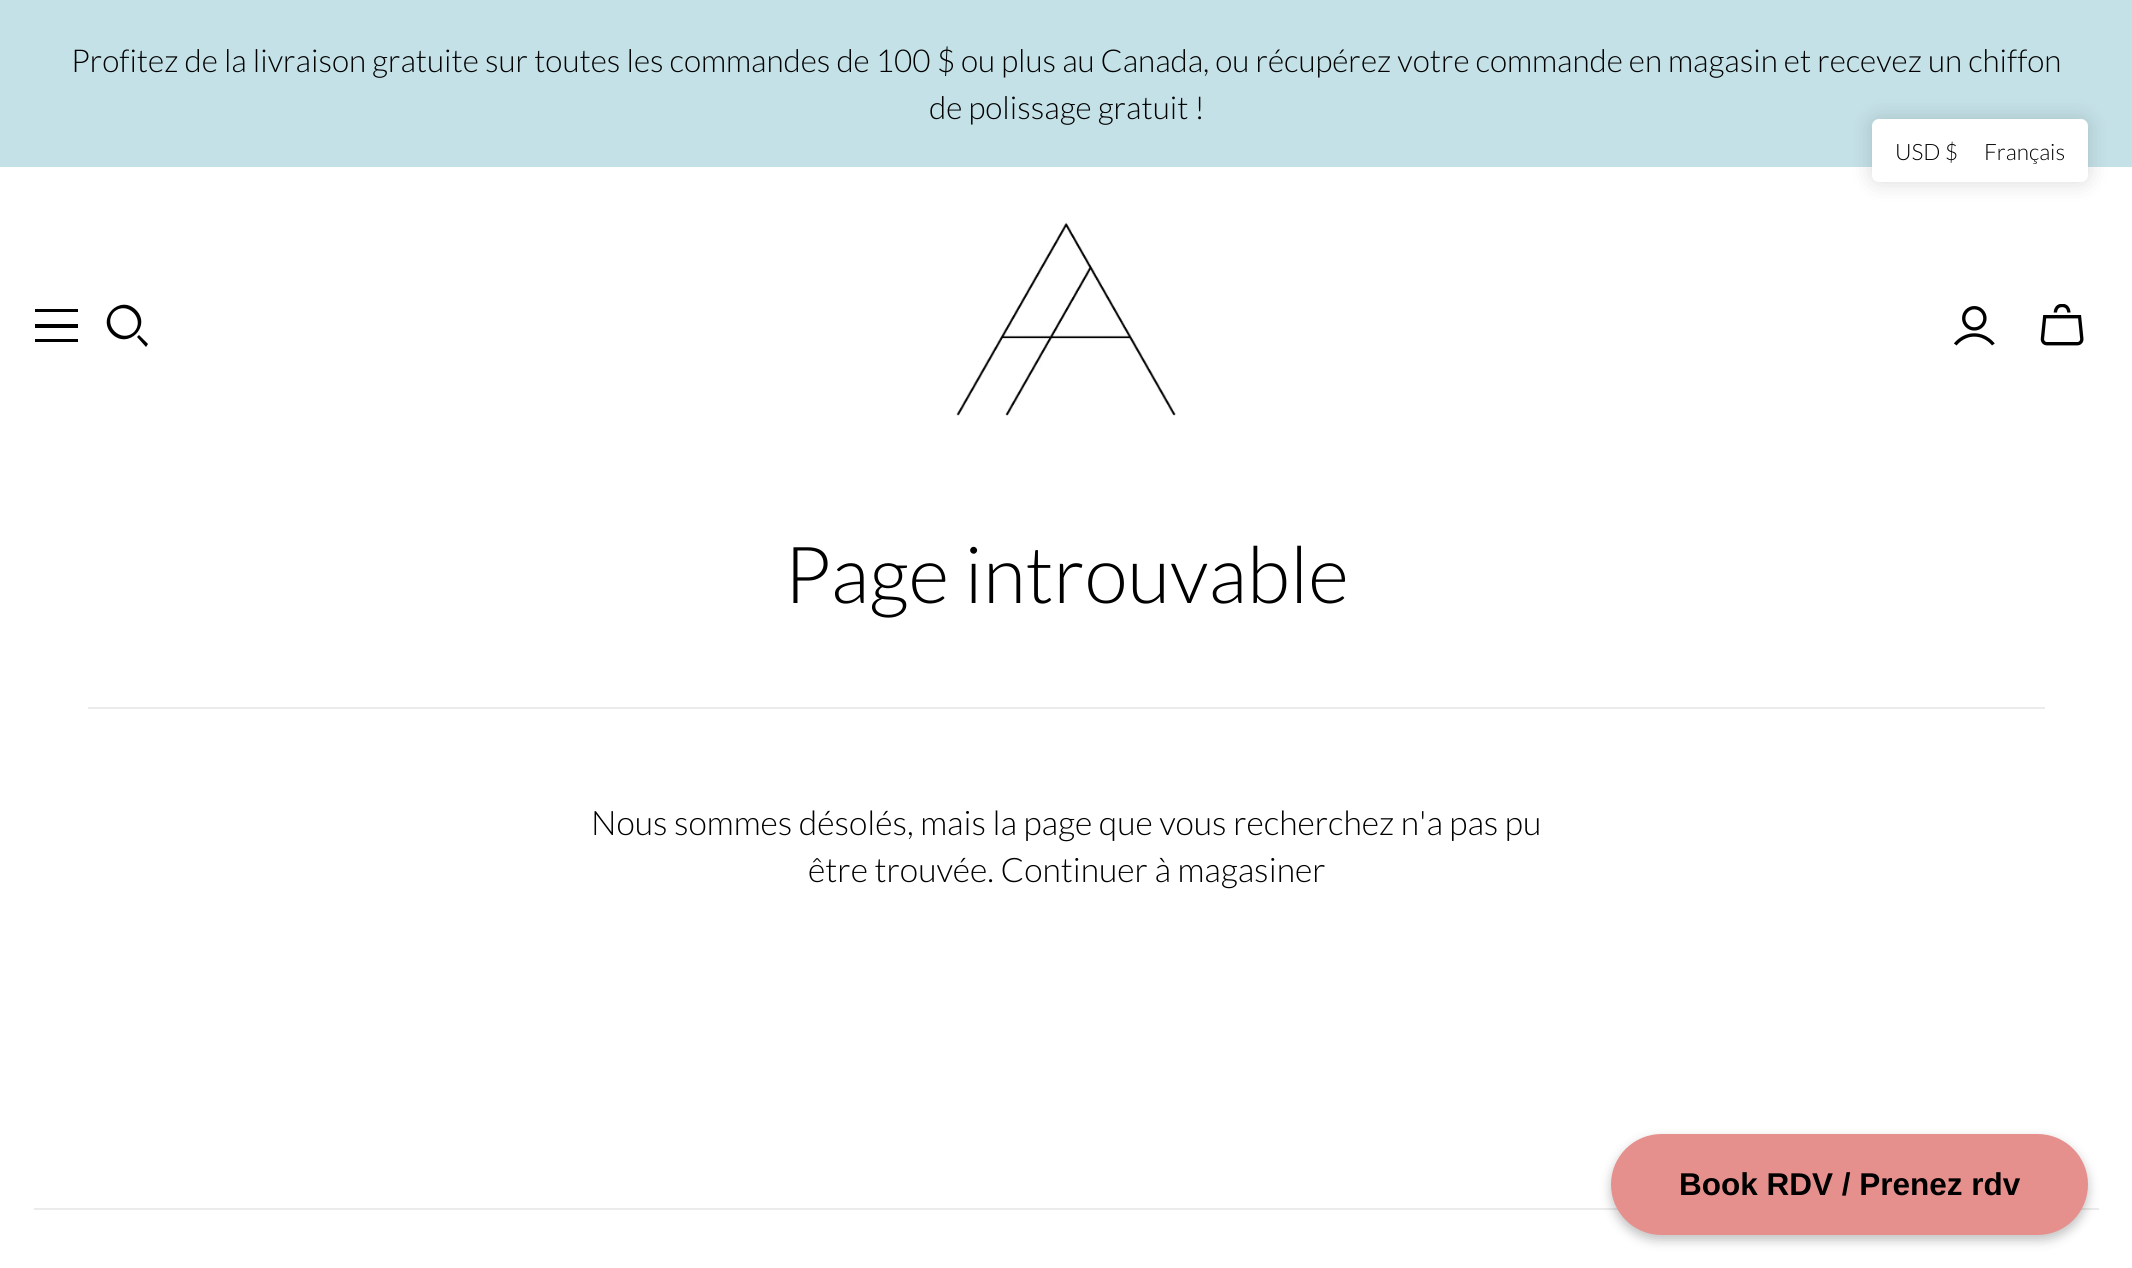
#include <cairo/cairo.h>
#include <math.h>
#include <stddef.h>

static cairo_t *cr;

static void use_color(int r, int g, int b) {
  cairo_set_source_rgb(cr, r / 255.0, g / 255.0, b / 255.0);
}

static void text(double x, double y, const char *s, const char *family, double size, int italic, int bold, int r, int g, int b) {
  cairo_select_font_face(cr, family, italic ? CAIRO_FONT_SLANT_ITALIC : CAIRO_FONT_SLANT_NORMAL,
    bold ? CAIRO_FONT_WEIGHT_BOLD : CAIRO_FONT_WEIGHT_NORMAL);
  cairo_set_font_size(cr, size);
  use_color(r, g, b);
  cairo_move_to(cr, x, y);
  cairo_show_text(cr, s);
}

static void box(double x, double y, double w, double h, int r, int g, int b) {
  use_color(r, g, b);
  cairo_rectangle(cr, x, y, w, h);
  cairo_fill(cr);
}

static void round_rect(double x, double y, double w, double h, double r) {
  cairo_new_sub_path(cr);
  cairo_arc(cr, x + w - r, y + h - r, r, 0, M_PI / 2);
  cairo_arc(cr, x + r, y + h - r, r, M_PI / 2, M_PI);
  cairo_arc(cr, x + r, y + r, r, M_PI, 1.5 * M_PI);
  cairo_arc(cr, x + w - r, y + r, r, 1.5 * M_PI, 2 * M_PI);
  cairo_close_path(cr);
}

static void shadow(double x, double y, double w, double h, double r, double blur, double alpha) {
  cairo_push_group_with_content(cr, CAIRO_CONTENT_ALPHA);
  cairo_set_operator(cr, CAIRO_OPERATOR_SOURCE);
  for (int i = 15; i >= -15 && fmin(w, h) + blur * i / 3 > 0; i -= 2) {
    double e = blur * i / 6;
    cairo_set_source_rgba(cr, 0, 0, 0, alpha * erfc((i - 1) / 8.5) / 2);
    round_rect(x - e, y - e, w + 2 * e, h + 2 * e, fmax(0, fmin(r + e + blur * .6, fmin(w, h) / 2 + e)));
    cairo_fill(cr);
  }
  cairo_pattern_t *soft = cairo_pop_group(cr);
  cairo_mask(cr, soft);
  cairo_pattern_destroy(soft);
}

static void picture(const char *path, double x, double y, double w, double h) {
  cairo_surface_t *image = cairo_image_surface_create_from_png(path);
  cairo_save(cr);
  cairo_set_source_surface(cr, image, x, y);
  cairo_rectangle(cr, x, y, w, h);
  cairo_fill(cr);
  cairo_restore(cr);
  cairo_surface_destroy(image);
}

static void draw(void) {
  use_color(255, 255, 255);
  cairo_paint(cr);
  box(0, 0, 2132, 167, 196, 225, 231);
  use_color(0, 0, 0);
  shadow(1872, 119, 216, 63, 7, 11, 0.15);
  use_color(255, 255, 255);
  round_rect(1872, 119, 216, 63, 7);
  cairo_fill(cr);
  picture("img_01.png", 956, 222, 220, 194);
  use_color(0, 0, 0);
  cairo_set_fill_rule(cr, CAIRO_FILL_RULE_EVEN_ODD);
  cairo_new_path(cr);
  cairo_move_to(cr, 78, 312);
  cairo_line_to(cr, 35, 312);
  cairo_line_to(cr, 35, 309);
  cairo_line_to(cr, 78, 309);
  cairo_close_path(cr);
  cairo_move_to(cr, 78, 328);
  cairo_line_to(cr, 35, 328);
  cairo_line_to(cr, 35, 324);
  cairo_line_to(cr, 78, 324);
  cairo_close_path(cr);
  cairo_move_to(cr, 35, 342);
  cairo_line_to(cr, 78, 342);
  cairo_line_to(cr, 78, 339);
  cairo_line_to(cr, 35, 339);
  cairo_close_path(cr);
  cairo_fill(cr);
  cairo_new_path(cr);
  cairo_move_to(cr, 114, 312);
  cairo_curve_to(cr, 102, 325, 121, 344, 134, 332);
  cairo_curve_to(cr, 146, 319, 127, 300, 114, 312);
  cairo_close_path(cr);
  cairo_move_to(cr, 112, 334);
  cairo_curve_to(cr, 96, 318, 120, 294, 136, 310);
  cairo_curve_to(cr, 152, 326, 128, 350, 112, 334);
  cairo_close_path(cr);
  cairo_move_to(cr, 146, 347);
  cairo_line_to(cr, 137, 337);
  cairo_line_to(cr, 139, 335);
  cairo_line_to(cr, 148, 344);
  cairo_close_path(cr);
  cairo_fill(cr);
  picture("img_02.png", 1954, 306, 41, 40);
  picture("img_03.png", 2040, 304, 44, 42);
  box(88, 707, 1957, 2, 235, 235, 235);
  box(34, 1208, 2065, 2, 235, 235, 235);
  use_color(0, 0, 0);
  shadow(1611, 1139, 477, 101, 50.5, 5.5, 0.25);
  use_color(230, 144, 142);
  round_rect(1611, 1134, 477, 101, 50.5);
  cairo_fill(cr);
  text(71, 72, "Profitez de la livraison gratuite sur toutes les commandes de 100 $ ou plus au Canada, ou récupérez votre commande en magasin et recevez un chiffon", "Lato Light", 31.5, 0, 0, 0, 0, 0);
  text(929, 119, "de polissage gratuit !", "Lato Light", 31.5, 0, 0, 0, 0, 0);
  text(1895, 160, "USD $", "Lato Light", 22.5, 0, 0, 0, 0, 0);
  text(1984, 160, "Français", "Lato Light", 22.5, 0, 0, 0, 0, 0);
  text(784, 603, "Page introuvable", "Lato Light", 78.75, 0, 0, 0, 0, 0);
  text(591, 835, "Nous sommes désolés, mais la page que vous recherchez n'a pas pu", "Lato Light", 33.75, 0, 0, 0, 0, 0);
  text(808, 882, "être trouvée. Continuer à magasiner", "Lato Light", 33.75, 0, 0, 0, 0, 0);
  text(1679, 1195, "Book RDV / Prenez rdv", "Liberation Sans", 31.5, 0, 1, 0, 0, 0);
}

int main(void) {
  cairo_surface_t *surface = cairo_image_surface_create(CAIRO_FORMAT_RGB24, 2132, 1268);
  cr = cairo_create(surface);
  cairo_font_options_t *options = cairo_font_options_create();
  cairo_font_options_set_hint_metrics(options, CAIRO_HINT_METRICS_OFF);
  cairo_font_options_set_hint_style(options, CAIRO_HINT_STYLE_NONE);
  cairo_set_font_options(cr, options);
  cairo_set_miter_limit(cr, 4);
  draw();
  cairo_surface_write_to_png(surface, "out.png");
  cairo_font_options_destroy(options);
  cairo_destroy(cr);
  cairo_surface_destroy(surface);
  return 0;
}
